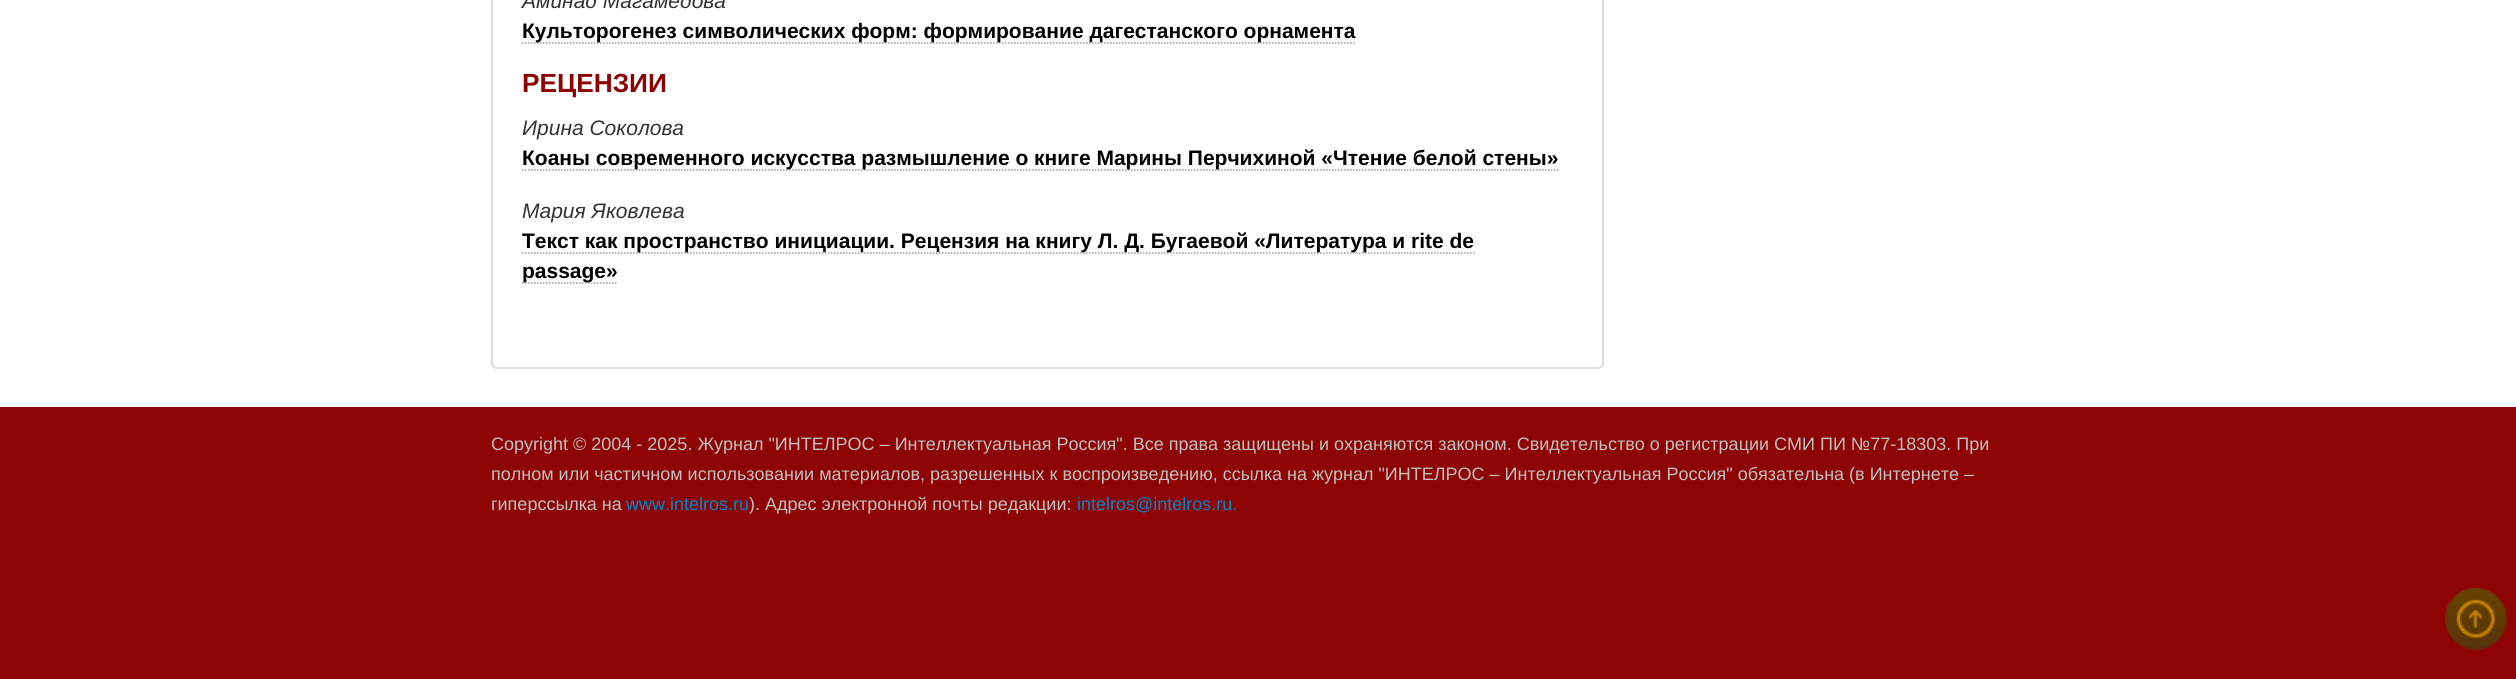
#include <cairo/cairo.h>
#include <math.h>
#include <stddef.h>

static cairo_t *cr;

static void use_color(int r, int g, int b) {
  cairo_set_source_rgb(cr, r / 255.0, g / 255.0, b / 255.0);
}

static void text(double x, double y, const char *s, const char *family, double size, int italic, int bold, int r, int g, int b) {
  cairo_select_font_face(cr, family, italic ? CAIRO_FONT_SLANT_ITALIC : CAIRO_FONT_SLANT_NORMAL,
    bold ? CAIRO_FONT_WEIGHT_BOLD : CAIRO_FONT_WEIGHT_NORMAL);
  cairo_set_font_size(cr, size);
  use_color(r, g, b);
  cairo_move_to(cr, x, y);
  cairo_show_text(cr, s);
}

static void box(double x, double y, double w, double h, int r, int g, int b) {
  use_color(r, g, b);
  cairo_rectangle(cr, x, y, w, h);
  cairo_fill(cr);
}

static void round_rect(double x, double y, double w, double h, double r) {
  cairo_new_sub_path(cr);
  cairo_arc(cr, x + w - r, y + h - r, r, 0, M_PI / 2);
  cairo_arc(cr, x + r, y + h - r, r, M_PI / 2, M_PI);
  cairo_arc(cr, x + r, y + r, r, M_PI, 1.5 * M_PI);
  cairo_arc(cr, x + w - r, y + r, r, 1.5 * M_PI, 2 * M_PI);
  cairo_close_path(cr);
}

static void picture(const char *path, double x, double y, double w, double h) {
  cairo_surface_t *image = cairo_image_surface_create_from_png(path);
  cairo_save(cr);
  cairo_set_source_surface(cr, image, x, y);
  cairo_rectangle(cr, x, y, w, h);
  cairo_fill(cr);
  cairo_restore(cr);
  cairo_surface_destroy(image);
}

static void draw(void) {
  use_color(255, 255, 255);
  cairo_paint(cr);
  round_rect(492, -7, 1111, 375, 5);
  use_color(221, 221, 221);
  cairo_stroke(cr);
  cairo_new_path(cr);
  cairo_move_to(cr, 522, 43);
  cairo_line_to(cr, 1356, 43);
  use_color(153, 153, 153);
  cairo_set_line_width(cr, 1.5);
  cairo_set_dash(cr, (double[]){1.5, 1.5}, 2, 0);
  cairo_stroke(cr);
  cairo_new_path(cr);
  cairo_move_to(cr, 522, 170);
  cairo_line_to(cr, 1558.5, 170);
  cairo_stroke(cr);
  cairo_new_path(cr);
  cairo_move_to(cr, 522, 253);
  cairo_line_to(cr, 1474.5, 253);
  cairo_stroke(cr);
  cairo_new_path(cr);
  cairo_move_to(cr, 522, 283);
  cairo_line_to(cr, 618, 283);
  cairo_stroke(cr);
  box(0, 407, 2516, 272, 142, 4, 4);
  picture("img_01.png", 2445, 588, 62, 62);
  text(522, 8, "Аминад Магамедова", "Liberation Sans", 21, 1, 0, 51, 51, 51);
  text(522, 38, "Культорогенез символических форм: формирование дагестанского орнамента", "Liberation Sans", 21, 0, 1, 0, 0, 0);
  text(522, 92, "РЕЦЕНЗИИ", "Liberation Sans", 26.25, 0, 1, 142, 4, 4);
  text(522, 135, "Ирина Соколова", "Liberation Sans", 21, 1, 0, 51, 51, 51);
  text(522, 165, "Коаны современного искусства размышление о книге Марины Перчихиной «Чтение белой стены»", "Liberation Sans", 21, 0, 1, 0, 0, 0);
  text(522, 218, "Мария Яковлева", "Liberation Sans", 21, 1, 0, 51, 51, 51);
  text(522, 248, "Текст как пространство инициации. Рецензия на книгу Л. Д. Бугаевой «Литература и rite de", "Liberation Sans", 21, 0, 1, 0, 0, 0);
  text(522, 278, "passage»", "Liberation Sans", 21, 0, 1, 0, 0, 0);
  text(491, 450, "Copyright © 2004 - 2025. Журнал \"ИНТЕЛРОС – Интеллектуальная Россия\". Все права защищены и охраняются законом. Свидетельство о регистрации СМИ ПИ №77-18303. При", "Liberation Sans", 18, 0, 0, 192, 192, 192);
  text(491, 480, "полном или частичном использовании материалов, разрешенных к воспроизведению, ссылка на журнал \"ИНТЕЛРОС – Интеллектуальная Россия\" обязательна (в Интернете –", "Liberation Sans", 18, 0, 0, 192, 192, 192);
  text(491, 510, "гиперссылка на", "Liberation Sans", 18, 0, 0, 192, 192, 192);
  text(626, 510, "www.intelros.ru", "Liberation Sans", 18, 0, 0, 0, 136, 204);
  text(749, 510, "). Адрес электронной почты редакции:", "Liberation Sans", 18, 0, 0, 192, 192, 192);
  text(1077, 510, "intelros@intelros.ru.", "Liberation Sans", 18, 0, 0, 0, 136, 204);
}

int main(void) {
  cairo_surface_t *surface = cairo_image_surface_create(CAIRO_FORMAT_RGB24, 2516, 679);
  cr = cairo_create(surface);
  cairo_font_options_t *options = cairo_font_options_create();
  cairo_font_options_set_hint_metrics(options, CAIRO_HINT_METRICS_OFF);
  cairo_font_options_set_hint_style(options, CAIRO_HINT_STYLE_NONE);
  cairo_set_font_options(cr, options);
  cairo_set_miter_limit(cr, 4);
  draw();
  cairo_surface_write_to_png(surface, "out.png");
  cairo_font_options_destroy(options);
  cairo_destroy(cr);
  cairo_surface_destroy(surface);
  return 0;
}
